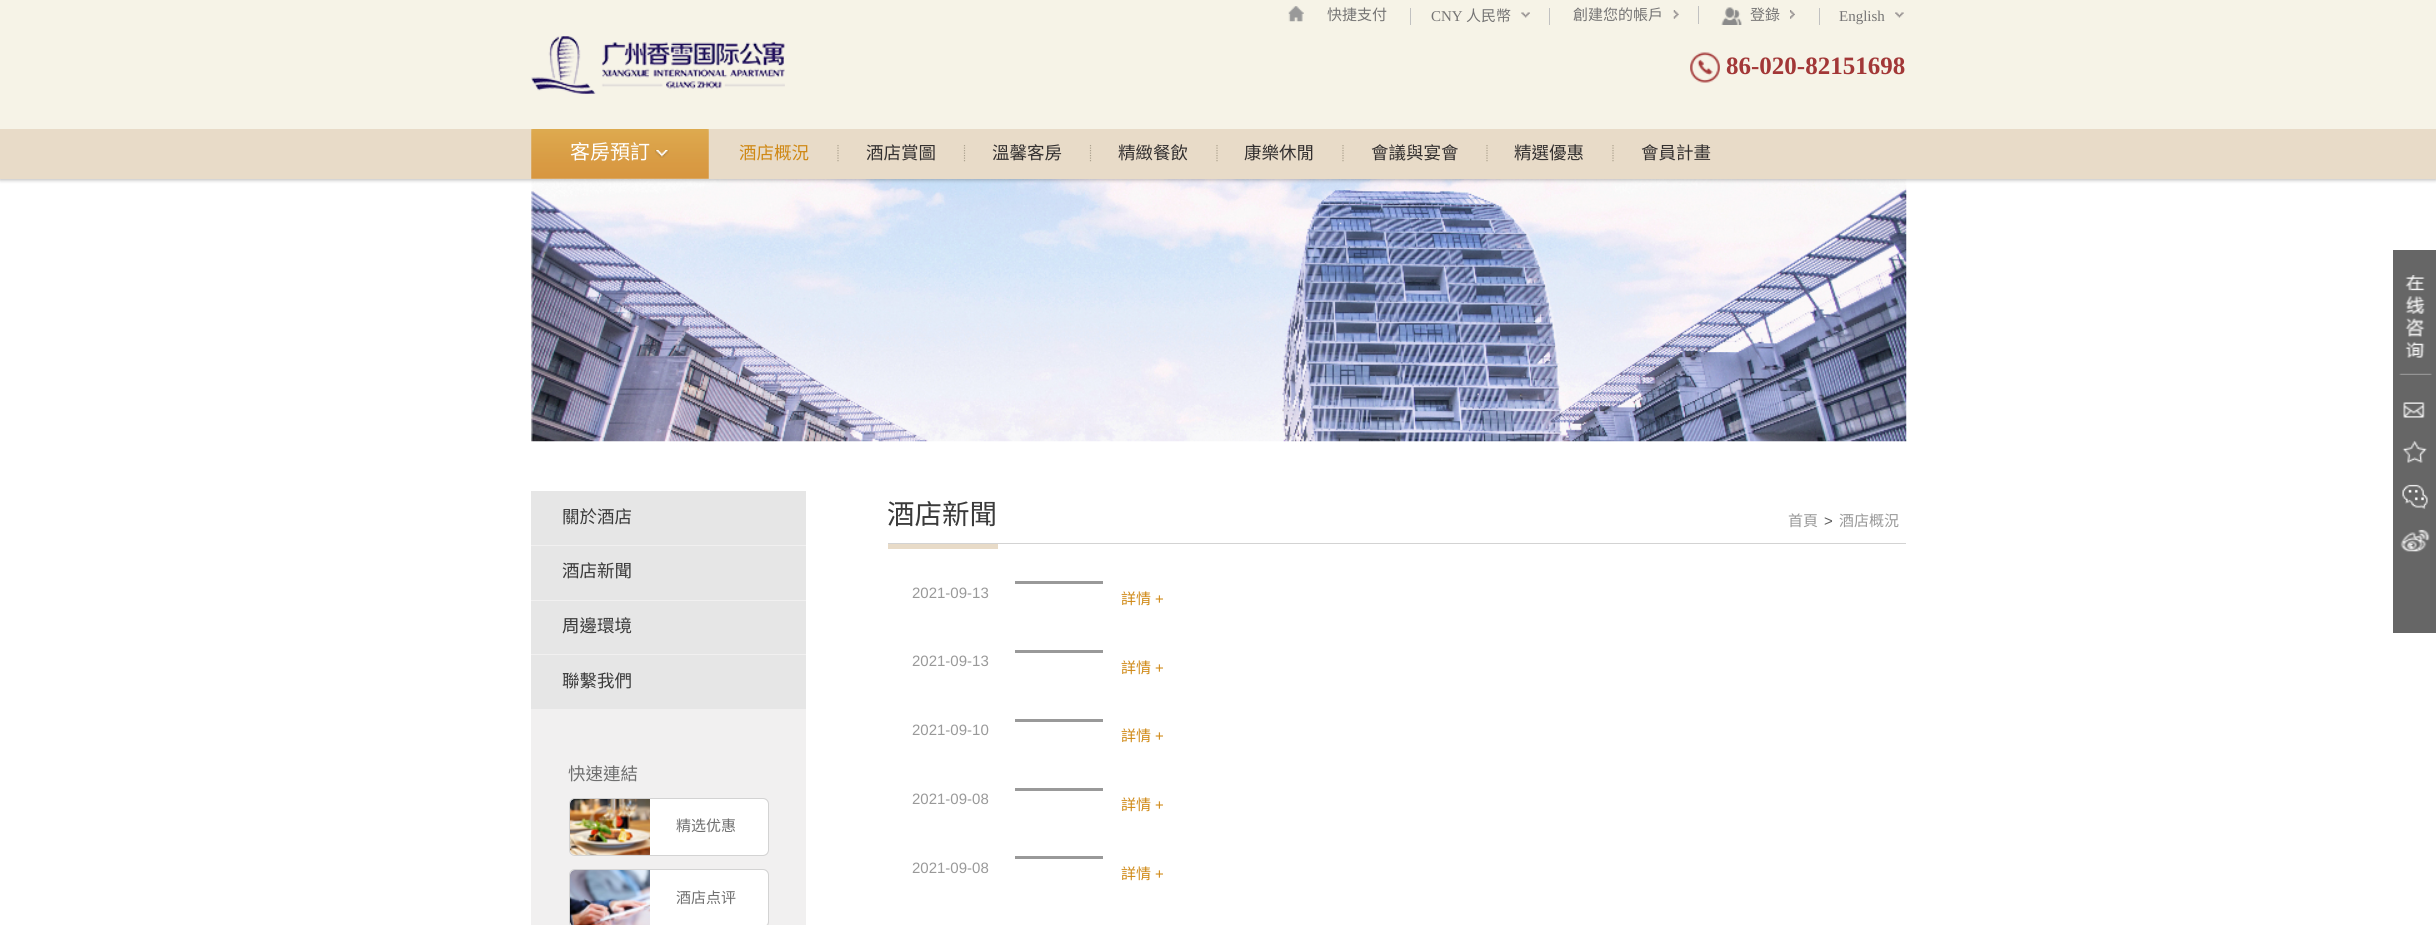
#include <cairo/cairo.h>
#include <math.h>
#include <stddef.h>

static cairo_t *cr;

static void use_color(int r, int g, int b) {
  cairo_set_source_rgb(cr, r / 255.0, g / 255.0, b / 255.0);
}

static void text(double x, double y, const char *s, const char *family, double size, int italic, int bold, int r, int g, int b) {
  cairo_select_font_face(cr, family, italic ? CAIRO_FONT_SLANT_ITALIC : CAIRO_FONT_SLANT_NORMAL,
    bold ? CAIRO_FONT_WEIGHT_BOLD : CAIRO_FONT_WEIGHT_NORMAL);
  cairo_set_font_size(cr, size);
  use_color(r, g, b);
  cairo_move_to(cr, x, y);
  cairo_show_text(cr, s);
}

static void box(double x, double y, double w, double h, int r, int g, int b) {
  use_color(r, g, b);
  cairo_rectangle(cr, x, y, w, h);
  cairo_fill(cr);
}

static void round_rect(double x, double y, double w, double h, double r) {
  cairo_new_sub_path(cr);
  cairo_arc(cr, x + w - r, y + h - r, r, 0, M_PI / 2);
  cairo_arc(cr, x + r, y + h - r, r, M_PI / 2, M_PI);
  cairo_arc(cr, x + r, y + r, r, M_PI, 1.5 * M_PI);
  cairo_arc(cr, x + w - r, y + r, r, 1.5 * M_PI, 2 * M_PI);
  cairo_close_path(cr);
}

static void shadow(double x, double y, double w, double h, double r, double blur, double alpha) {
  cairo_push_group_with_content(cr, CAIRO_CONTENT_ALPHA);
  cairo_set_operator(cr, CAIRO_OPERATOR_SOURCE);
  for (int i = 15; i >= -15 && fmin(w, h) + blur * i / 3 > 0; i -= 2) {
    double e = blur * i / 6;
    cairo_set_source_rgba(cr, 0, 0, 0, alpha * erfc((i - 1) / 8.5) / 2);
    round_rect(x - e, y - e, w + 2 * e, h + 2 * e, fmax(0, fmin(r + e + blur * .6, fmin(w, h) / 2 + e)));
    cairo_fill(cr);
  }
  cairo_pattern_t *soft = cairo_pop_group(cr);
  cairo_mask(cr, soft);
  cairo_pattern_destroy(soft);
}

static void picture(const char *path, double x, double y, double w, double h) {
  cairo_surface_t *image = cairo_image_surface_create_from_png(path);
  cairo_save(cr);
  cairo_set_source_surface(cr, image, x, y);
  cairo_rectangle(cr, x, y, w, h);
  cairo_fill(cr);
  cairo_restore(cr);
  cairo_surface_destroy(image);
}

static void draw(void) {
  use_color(255, 255, 255);
  cairo_paint(cr);
  picture("img_11.png", 531, 179, 1376, 263);
  use_color(0, 0, 0);
  shadow(0, 130, 2436, 50, 0, 2, 0.28);
  box(0, 0, 2436, 129, 246, 243, 231);
  picture("img_01.png", 1288, 6, 16, 16);
  box(1549, 8, 1, 17, 193, 193, 193);
  box(1410, 8, 1, 17, 193, 193, 193);
  picture("img_02.png", 1521, 12, 9, 6);
  box(1698, 6, 1, 18, 193, 193, 193);
  picture("img_03.png", 1673, 10, 6, 9);
  picture("img_04.png", 1721, 7, 21, 18);
  picture("img_05.png", 1790, 10, 5, 9);
  box(1819, 8, 1, 17, 193, 193, 193);
  picture("img_06.png", 1895, 12, 9, 6);
  picture("img_07.png", 531, 36, 254, 58);
  picture("img_08.png", 1690, 52, 30, 31);
  box(0, 129, 2436, 50, 232, 219, 200);
  picture("img_09.png", 531, 129, 178, 50);
  picture("img_10.png", 655, 150, 14, 8);
  cairo_new_path(cr);
  cairo_move_to(cr, 838, 145);
  cairo_line_to(cr, 838, 162.5);
  use_color(172, 162, 143);
  cairo_set_line_width(cr, 1.2);
  cairo_set_dash(cr, (double[]){1.25, 1.25}, 2, 0);
  cairo_stroke(cr);
  cairo_new_path(cr);
  cairo_move_to(cr, 964.5, 145);
  cairo_line_to(cr, 964.5, 162.5);
  cairo_stroke(cr);
  cairo_new_path(cr);
  cairo_move_to(cr, 1090.5, 145);
  cairo_line_to(cr, 1090.5, 162.5);
  cairo_stroke(cr);
  cairo_new_path(cr);
  cairo_move_to(cr, 1217, 145);
  cairo_line_to(cr, 1217, 162.5);
  cairo_stroke(cr);
  cairo_new_path(cr);
  cairo_move_to(cr, 1343, 145);
  cairo_line_to(cr, 1343, 162.5);
  cairo_stroke(cr);
  cairo_new_path(cr);
  cairo_move_to(cr, 1487, 145);
  cairo_line_to(cr, 1487, 162.5);
  cairo_stroke(cr);
  cairo_new_path(cr);
  cairo_move_to(cr, 1613, 145);
  cairo_line_to(cr, 1613, 162.5);
  cairo_stroke(cr);
  box(2393, 250, 43, 383, 102, 102, 102);
  picture("img_12.png", 2399, 275, 33, 100);
  picture("img_13.png", 2403, 402, 22, 16);
  picture("img_14.png", 2402, 440, 25, 23);
  picture("img_15.png", 2402, 484, 26, 25);
  picture("img_16.png", 2400, 529, 30, 23);
  box(531, 545, 275, 380, 241, 240, 240);
  box(531, 491, 275, 54, 230, 230, 230);
  box(531, 546, 275, 54, 230, 230, 230);
  box(531, 601, 275, 53, 230, 230, 230);
  box(531, 655, 275, 54, 230, 230, 230);
  use_color(255, 255, 255);
  round_rect(570, 799, 198, 56, 5);
  cairo_fill(cr);
  picture("img_17.png", 570, 798, 80, 57);
  round_rect(569.5, 798.5, 199, 57, 5.5);
  use_color(211, 211, 211);
  cairo_set_line_width(cr, 1);
  cairo_set_dash(cr, NULL, 0, 0);
  cairo_stroke(cr);
  use_color(255, 255, 255);
  round_rect(570, 870, 198, 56, 5);
  cairo_fill(cr);
  picture("img_18.png", 570, 870, 80, 55);
  round_rect(569.5, 869.5, 199, 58, 5.5);
  use_color(211, 211, 211);
  cairo_stroke(cr);
  box(888, 543, 1018, 1, 211, 211, 211);
  box(888, 544, 110, 5, 232, 219, 200);
  box(1015, 581, 88, 3, 153, 153, 153);
  box(1015, 650, 88, 3, 153, 153, 153);
  box(1015, 719, 88, 3, 153, 153, 153);
  box(1015, 788, 88, 3, 153, 153, 153);
  box(1015, 856, 88, 3, 153, 153, 153);
  text(1327, 20, "快捷支付", "Noto Sans CJK TC", 15, 0, 0, 117, 116, 116);
  text(1431, 21, "CNY", "Liberation Serif", 15, 0, 0, 117, 116, 116);
  text(1466, 21, "人民幣", "Noto Sans CJK TC", 15, 0, 0, 117, 116, 116);
  text(1573, 20, "創建您的帳戶", "Noto Sans CJK TC", 15, 0, 0, 117, 116, 116);
  text(1750, 20, "登錄", "Noto Sans CJK TC", 15, 0, 0, 117, 116, 116);
  text(1839, 21, "English", "Liberation Serif", 15, 0, 0, 117, 116, 116);
  text(1726, 74, "86-020-82151698", "Liberation Serif", 25, 0, 1, 162, 55, 55);
  text(570, 159, "客房預訂", "Noto Sans CJK TC", 20, 0, 0, 255, 255, 255);
  text(739, 159, "酒店概況", "Noto Sans CJK TC", 17.5, 0, 0, 207, 136, 20);
  text(866, 159, "酒店賞圖", "Noto Sans CJK TC", 17.5, 0, 0, 50, 47, 47);
  text(992, 159, "溫馨客房", "Noto Sans CJK TC", 17.5, 0, 0, 50, 47, 47);
  text(1118, 159, "精緻餐飲", "Noto Sans CJK TC", 17.5, 0, 0, 50, 47, 47);
  text(1244, 159, "康樂休閒", "Noto Sans CJK TC", 17.5, 0, 0, 50, 47, 47);
  text(1371, 159, "會議與宴會", "Noto Sans CJK TC", 17.5, 0, 0, 50, 47, 47);
  text(1514, 159, "精選優惠", "Noto Sans CJK TC", 17.5, 0, 0, 50, 47, 47);
  text(1641, 159, "會員計畫", "Noto Sans CJK TC", 17.5, 0, 0, 50, 47, 47);
  text(562, 523, "關於酒店", "Noto Sans CJK TC", 17.5, 0, 0, 58, 58, 58);
  text(562, 577, "酒店新聞", "Noto Sans CJK TC", 17.5, 0, 0, 58, 58, 58);
  text(562, 632, "周邊環境", "Noto Sans CJK TC", 17.5, 0, 0, 58, 58, 58);
  text(562, 687, "聯繫我們", "Noto Sans CJK TC", 17.5, 0, 0, 58, 58, 58);
  text(568, 780, "快速連結", "Noto Sans CJK TC", 17.5, 0, 0, 111, 111, 111);
  text(676, 831, "精选优惠", "Noto Sans CJK TC", 15, 0, 0, 111, 111, 111);
  text(676, 903, "酒店点评", "Noto Sans CJK TC", 15, 0, 0, 111, 111, 111);
  text(887, 524, "酒店新聞", "Noto Sans CJK TC", 27.5, 0, 0, 58, 58, 58);
  text(1788, 526, "首頁", "Noto Sans CJK TC", 15, 0, 0, 153, 153, 153);
  text(1824, 526, ">", "Liberation Sans", 15, 0, 0, 92, 92, 92);
  text(1839, 526, "酒店概況", "Noto Sans CJK TC", 15, 0, 0, 153, 153, 153);
  text(912, 598, "2021-09-13", "Liberation Sans", 15, 0, 0, 153, 153, 153);
  text(1121, 604, "詳情", "Noto Sans CJK TC", 15, 0, 0, 207, 136, 20);
  text(1155, 604, "+", "Liberation Sans", 15, 0, 0, 207, 136, 20);
  text(912, 666, "2021-09-13", "Liberation Sans", 15, 0, 0, 153, 153, 153);
  text(1121, 673, "詳情", "Noto Sans CJK TC", 15, 0, 0, 207, 136, 20);
  text(1155, 673, "+", "Liberation Sans", 15, 0, 0, 207, 136, 20);
  text(912, 735, "2021-09-10", "Liberation Sans", 15, 0, 0, 153, 153, 153);
  text(1121, 741, "詳情", "Noto Sans CJK TC", 15, 0, 0, 207, 136, 20);
  text(1155, 741, "+", "Liberation Sans", 15, 0, 0, 207, 136, 20);
  text(912, 804, "2021-09-08", "Liberation Sans", 15, 0, 0, 153, 153, 153);
  text(1121, 810, "詳情", "Noto Sans CJK TC", 15, 0, 0, 207, 136, 20);
  text(1155, 810, "+", "Liberation Sans", 15, 0, 0, 207, 136, 20);
  text(912, 873, "2021-09-08", "Liberation Sans", 15, 0, 0, 153, 153, 153);
  text(1121, 879, "詳情", "Noto Sans CJK TC", 15, 0, 0, 207, 136, 20);
  text(1155, 879, "+", "Liberation Sans", 15, 0, 0, 207, 136, 20);
}

int main(void) {
  cairo_surface_t *surface = cairo_image_surface_create(CAIRO_FORMAT_RGB24, 2436, 925);
  cr = cairo_create(surface);
  cairo_font_options_t *options = cairo_font_options_create();
  cairo_font_options_set_hint_metrics(options, CAIRO_HINT_METRICS_OFF);
  cairo_font_options_set_hint_style(options, CAIRO_HINT_STYLE_NONE);
  cairo_set_font_options(cr, options);
  cairo_set_miter_limit(cr, 4);
  draw();
  cairo_surface_write_to_png(surface, "out.png");
  cairo_font_options_destroy(options);
  cairo_destroy(cr);
  cairo_surface_destroy(surface);
  return 0;
}
